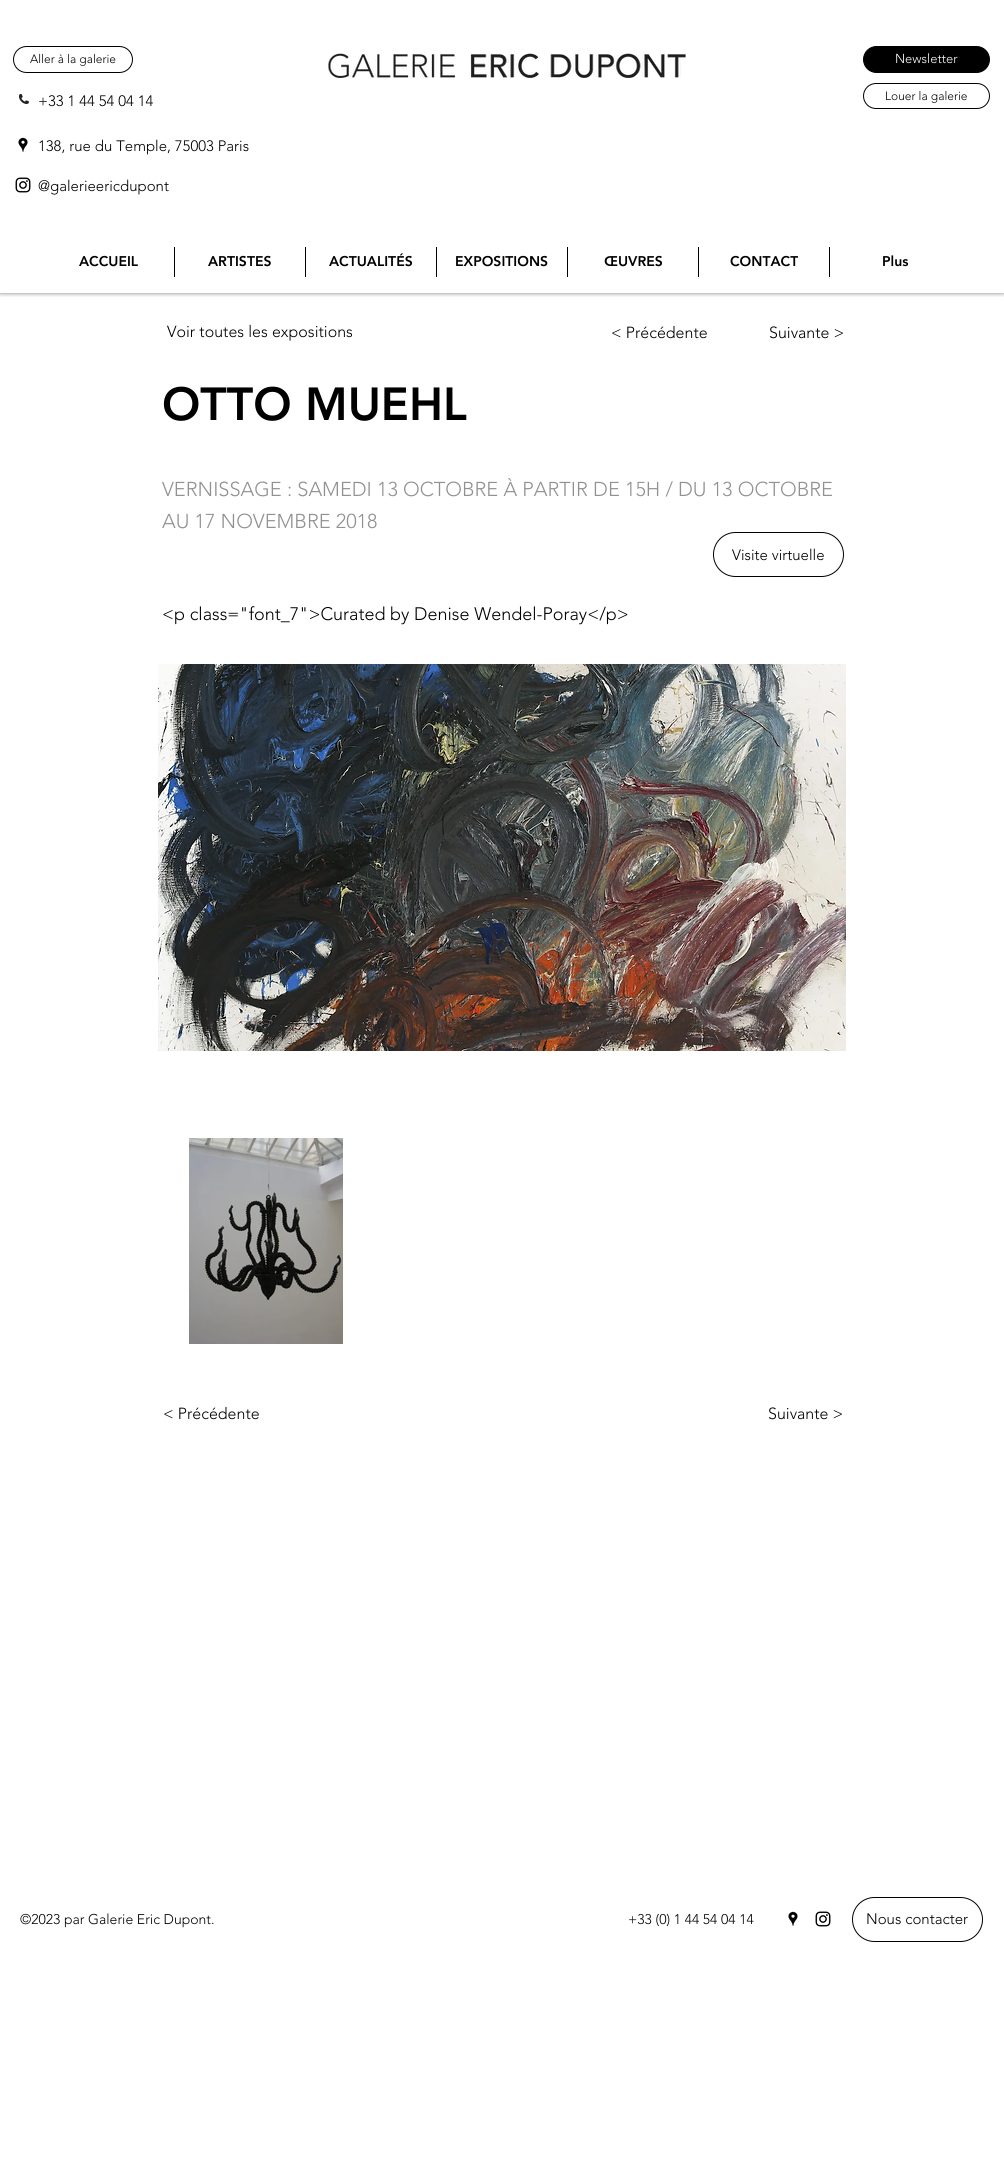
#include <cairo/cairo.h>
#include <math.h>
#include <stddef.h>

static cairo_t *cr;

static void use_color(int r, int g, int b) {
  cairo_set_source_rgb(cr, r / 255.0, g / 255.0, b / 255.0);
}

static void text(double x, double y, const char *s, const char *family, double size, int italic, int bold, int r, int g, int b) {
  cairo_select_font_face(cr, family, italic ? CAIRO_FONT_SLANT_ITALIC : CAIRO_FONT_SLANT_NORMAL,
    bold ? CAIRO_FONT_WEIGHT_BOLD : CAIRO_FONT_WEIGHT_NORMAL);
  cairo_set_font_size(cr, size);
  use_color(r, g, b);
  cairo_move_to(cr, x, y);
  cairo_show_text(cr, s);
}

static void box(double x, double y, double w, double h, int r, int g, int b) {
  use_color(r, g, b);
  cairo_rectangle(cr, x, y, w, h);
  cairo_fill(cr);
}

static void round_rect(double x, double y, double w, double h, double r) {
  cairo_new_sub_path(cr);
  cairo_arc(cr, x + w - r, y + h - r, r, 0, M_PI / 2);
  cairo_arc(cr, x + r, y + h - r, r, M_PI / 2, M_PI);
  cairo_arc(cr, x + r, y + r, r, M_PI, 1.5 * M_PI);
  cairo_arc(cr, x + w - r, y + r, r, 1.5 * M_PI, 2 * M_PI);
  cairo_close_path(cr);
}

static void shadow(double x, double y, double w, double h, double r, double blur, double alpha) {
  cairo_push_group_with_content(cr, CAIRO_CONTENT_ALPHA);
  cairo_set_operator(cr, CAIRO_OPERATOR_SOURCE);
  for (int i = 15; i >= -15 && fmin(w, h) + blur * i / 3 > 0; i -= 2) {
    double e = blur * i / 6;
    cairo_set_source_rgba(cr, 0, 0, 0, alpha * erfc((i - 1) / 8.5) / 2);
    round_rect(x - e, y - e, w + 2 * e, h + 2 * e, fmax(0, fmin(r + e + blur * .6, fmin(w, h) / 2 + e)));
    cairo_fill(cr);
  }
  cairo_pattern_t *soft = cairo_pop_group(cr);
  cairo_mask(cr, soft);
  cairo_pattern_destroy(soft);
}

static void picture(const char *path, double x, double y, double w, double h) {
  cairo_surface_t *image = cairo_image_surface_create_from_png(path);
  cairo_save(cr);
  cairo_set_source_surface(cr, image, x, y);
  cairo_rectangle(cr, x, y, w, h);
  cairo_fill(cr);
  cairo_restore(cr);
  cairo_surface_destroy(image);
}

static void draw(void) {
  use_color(255, 255, 255);
  cairo_paint(cr);
  cairo_save(cr);
  cairo_rectangle(cr, 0, 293, 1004, 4);
  cairo_clip(cr);
  use_color(0, 0, 0);
  shadow(0, 0, 1004, 293, 0, 2.5, 0.5);
  cairo_restore(cr);
  round_rect(13.5, 46.5, 119, 26, 13);
  use_color(0, 0, 0);
  cairo_set_line_width(cr, 1);
  cairo_stroke(cr);
  picture("img_01.png", 328, 53, 358, 25);
  round_rect(863.5, 46.5, 126, 26, 13);
  cairo_fill_preserve(cr);
  cairo_stroke(cr);
  picture("img_02.png", 19, 94, 10, 10);
  picture("img_03.png", 18, 137, 10, 15);
  picture("img_04.png", 15, 177, 16, 16);
  round_rect(863.5, 83.5, 126, 25, 12.5);
  cairo_stroke(cr);
  box(174, 247, 1, 30, 0, 0, 0);
  box(305, 247, 1, 30, 0, 0, 0);
  box(436, 247, 1, 30, 0, 0, 0);
  box(567, 247, 1, 30, 0, 0, 0);
  box(698, 247, 1, 30, 0, 0, 0);
  box(829, 247, 1, 30, 0, 0, 0);
  round_rect(713.5, 532.5, 130, 44, 22);
  cairo_stroke(cr);
  picture("img_05.png", 158, 664, 688, 387);
  picture("img_06.png", 189, 1138, 154, 206);
  picture("img_03.png", 788, 1911, 10, 15);
  picture("img_04.png", 815, 1911, 16, 16);
  round_rect(852.5, 1897.5, 130, 44, 22);
  cairo_stroke(cr);
  text(30, 63, "Aller à la galerie", "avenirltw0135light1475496 Light", 12, 0, 0, 0, 0, 0);
  text(895, 63, "Newsletter", "avenirltw0135light1475496 Light", 13, 0, 0, 255, 255, 255);
  text(38, 106, "+33 1 44 54 04 14", "avenirltw0135light1475496 Light", 15, 0, 0, 0, 0, 0);
  text(38, 151, "138, rue du Temple, 75003 Paris", "avenirltw0135light1475496 Light", 15, 0, 0, 0, 0, 0);
  text(38, 191, "@galerieericdupont", "avenirltw0135light1475496 Light", 15, 0, 0, 0, 0, 0);
  text(885, 100, "Louer la galerie", "avenirltw0135light1475496 Light", 12, 0, 0, 0, 0, 0);
  text(79, 266, "ACCUEIL", "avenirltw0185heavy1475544 Black", 14, 0, 0, 0, 0, 0);
  text(208, 266, "ARTISTES", "avenirltw0185heavy1475544 Black", 14, 0, 0, 0, 0, 0);
  text(329, 266, "ACTUALITÉS", "avenirltw0185heavy1475544 Black", 14, 0, 0, 0, 0, 0);
  text(455, 266, "EXPOSITIONS", "avenirltw0185heavy1475544 Black", 14, 0, 0, 0, 0, 0);
  text(604, 266, "ŒUVRES", "avenirltw0185heavy1475544 Black", 14, 0, 0, 0, 0, 0);
  text(730, 266, "CONTACT", "avenirltw0185heavy1475544 Black", 14, 0, 0, 0, 0, 0);
  text(882, 266, "Plus", "avenirltw0185heavy1475544 Black", 14, 0, 0, 0, 0, 0);
  text(167, 337, "Voir toutes les expositions", "avenirltw0135light1475496 Light", 16, 0, 0, 0, 0, 0);
  text(611, 338, "< Précédente", "avenirltw0135light1475496 Light", 16, 0, 0, 0, 0, 0);
  text(769, 338, "Suivante >", "avenirltw0135light1475496 Light", 16, 0, 0, 0, 0, 0);
  text(162, 420, "OTTO MUEHL", "avenirltw0185heavy1475544 Black", 46, 0, 0, 0, 0, 0);
  text(162, 496, "VERNISSAGE : SAMEDI 13 OCTOBRE À PARTIR DE 15H / DU 13 OCTOBRE", "avenirltw0135light1475496 Light", 20, 0, 0, 145, 145, 145);
  text(162, 528, "AU 17 NOVEMBRE 2018", "avenirltw0135light1475496 Light", 20, 0, 0, 145, 145, 145);
  text(732, 560, "Visite virtuelle", "avenirltw0135light1475496 Light", 15, 0, 0, 0, 0, 0);
  text(162, 620, "<p class=\"font_7\">Curated by Denise Wendel-Poray</p>", "avenirltw0135light1475496 Light", 18, 0, 0, 0, 0, 0);
  text(163, 1419, "< Précédente", "avenirltw0135light1475496 Light", 16, 0, 0, 0, 0, 0);
  text(768, 1419, "Suivante >", "avenirltw0135light1475496 Light", 16, 0, 0, 0, 0, 0);
  text(20, 1924, "©2023 par Galerie Eric Dupont.", "avenirltw0135light1475496 Light", 14, 0, 0, 0, 0, 0);
  text(628, 1924, "+33 (0) 1 44 54 04 14", "avenirltw0135light1475496 Light", 14, 0, 0, 0, 0, 0);
  text(866, 1924, "Nous contacter", "avenirltw0135light1475496 Light", 15, 0, 0, 0, 0, 0);
}

int main(void) {
  cairo_surface_t *surface = cairo_image_surface_create(CAIRO_FORMAT_RGB24, 1004, 2175);
  cr = cairo_create(surface);
  cairo_font_options_t *options = cairo_font_options_create();
  cairo_font_options_set_hint_metrics(options, CAIRO_HINT_METRICS_OFF);
  cairo_font_options_set_hint_style(options, CAIRO_HINT_STYLE_NONE);
  cairo_set_font_options(cr, options);
  cairo_set_miter_limit(cr, 4);
  draw();
  cairo_surface_write_to_png(surface, "out.png");
  cairo_font_options_destroy(options);
  cairo_destroy(cr);
  cairo_surface_destroy(surface);
  return 0;
}
